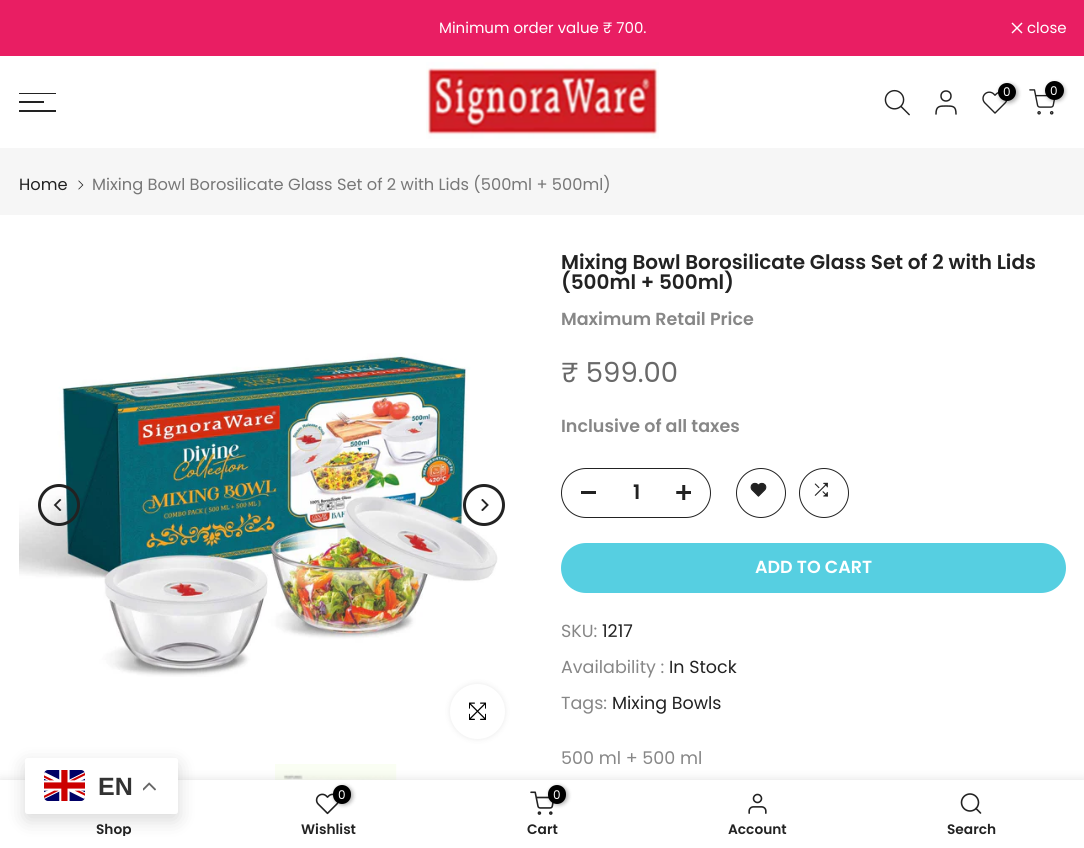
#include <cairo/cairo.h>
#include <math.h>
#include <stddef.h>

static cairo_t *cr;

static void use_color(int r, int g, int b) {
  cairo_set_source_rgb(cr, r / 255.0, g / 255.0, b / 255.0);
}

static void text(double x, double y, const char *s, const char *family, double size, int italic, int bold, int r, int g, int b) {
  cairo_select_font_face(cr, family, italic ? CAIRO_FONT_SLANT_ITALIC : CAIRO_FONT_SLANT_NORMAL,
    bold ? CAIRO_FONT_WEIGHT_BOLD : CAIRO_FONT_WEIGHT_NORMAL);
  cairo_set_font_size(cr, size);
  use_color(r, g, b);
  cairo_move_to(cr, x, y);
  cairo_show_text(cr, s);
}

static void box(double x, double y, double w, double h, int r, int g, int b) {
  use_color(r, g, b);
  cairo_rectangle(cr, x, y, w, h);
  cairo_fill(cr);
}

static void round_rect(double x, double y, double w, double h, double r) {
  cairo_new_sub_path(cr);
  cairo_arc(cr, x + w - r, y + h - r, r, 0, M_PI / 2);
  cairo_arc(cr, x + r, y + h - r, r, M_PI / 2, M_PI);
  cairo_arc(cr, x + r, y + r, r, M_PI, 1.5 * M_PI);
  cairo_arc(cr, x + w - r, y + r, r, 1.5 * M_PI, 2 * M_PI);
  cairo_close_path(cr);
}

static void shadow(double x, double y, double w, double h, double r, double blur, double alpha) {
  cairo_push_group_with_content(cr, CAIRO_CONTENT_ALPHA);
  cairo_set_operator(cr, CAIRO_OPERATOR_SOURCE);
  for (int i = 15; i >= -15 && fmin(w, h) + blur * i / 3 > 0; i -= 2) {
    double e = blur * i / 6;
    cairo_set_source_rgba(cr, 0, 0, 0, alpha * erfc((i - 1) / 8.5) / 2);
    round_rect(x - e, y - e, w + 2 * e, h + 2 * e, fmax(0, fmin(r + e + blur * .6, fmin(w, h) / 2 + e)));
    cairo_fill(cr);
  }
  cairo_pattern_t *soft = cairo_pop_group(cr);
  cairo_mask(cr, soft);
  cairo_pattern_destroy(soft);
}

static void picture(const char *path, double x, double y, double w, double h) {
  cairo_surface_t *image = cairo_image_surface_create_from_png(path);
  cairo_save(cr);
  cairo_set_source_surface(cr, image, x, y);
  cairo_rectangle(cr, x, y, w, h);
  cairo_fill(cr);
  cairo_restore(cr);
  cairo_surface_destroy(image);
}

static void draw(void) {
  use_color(255, 255, 255);
  cairo_paint(cr);
  box(0, 0, 1084, 56, 233, 30, 99);
  cairo_new_path(cr);
  cairo_move_to(cr, 1022, 23);
  cairo_line_to(cr, 1012, 33);
  cairo_move_to(cr, 1022, 33);
  cairo_line_to(cr, 1012, 23);
  use_color(255, 255, 255);
  cairo_set_line_width(cr, 1.4);
  cairo_stroke(cr);
  picture("img_01.png", 426, 62, 233, 77);
  picture("img_02.png", 884, 89, 26, 27);
  cairo_arc(cr, 946, 96, 5, 0, 2 * M_PI);
  use_color(34, 34, 34);
  cairo_set_line_width(cr, 1.5);
  cairo_stroke(cr);
  cairo_new_path(cr);
  cairo_move_to(cr, 956, 114);
  cairo_curve_to(cr, 956, 106, 953, 106, 946, 106);
  cairo_curve_to(cr, 939.5, 106, 936, 106, 936, 114);
  cairo_set_line_cap(cr, CAIRO_LINE_CAP_ROUND);
  cairo_set_line_join(cr, CAIRO_LINE_JOIN_ROUND);
  cairo_stroke(cr);
  picture("img_03.png", 982, 91, 26, 23);
  use_color(0, 0, 0);
  shadow(999, 84, 19, 19, 9.5, 2, 0.3);
  use_color(0, 0, 0);
  cairo_arc(cr, 1007, 92, 9, 0, 2 * M_PI);
  cairo_fill(cr);
  picture("img_04.png", 1029, 89, 27, 26);
  use_color(0, 0, 0);
  shadow(1046, 83, 19, 18, 9, 2, 0.3);
  use_color(0, 0, 0);
  cairo_arc(cr, 1054.5, 90.5, 9.5, 0, 2 * M_PI);
  cairo_fill(cr);
  box(19, 93, 37, 1, 34, 34, 34);
  box(19, 101, 25, 2, 34, 34, 34);
  box(19, 110, 37, 2, 34, 34, 34);
  box(0, 148, 1084, 67, 246, 246, 246);
  picture("img_05.png", 78, 180, 6, 10);
  picture("img_06.png", 19, 353, 479, 324);
  cairo_arc(cr, 59, 505, 19.5, 0, 2 * M_PI);
  use_color(34, 34, 34);
  cairo_set_line_width(cr, 3);
  cairo_set_line_cap(cr, CAIRO_LINE_CAP_BUTT);
  cairo_set_line_join(cr, CAIRO_LINE_JOIN_MITER);
  cairo_stroke(cr);
  picture("img_07.png", 53, 499, 9, 12);
  cairo_arc(cr, 484, 505, 19.5, 0, 2 * M_PI);
  cairo_stroke(cr);
  picture("img_08.png", 481, 499, 8, 12);
  use_color(0, 0, 0);
  shadow(450, 684, 55, 55, 27.5, 3, 0.09);
  use_color(255, 255, 255);
  cairo_arc(cr, 477.5, 711.5, 27.5, 0, 2 * M_PI);
  cairo_fill(cr);
  picture("img_09.png", 469, 702, 17, 18);
  picture("img_10.png", 275, 764, 122, 16);
  round_rect(561.5, 468.5, 149, 49, 24.5);
  use_color(34, 34, 34);
  cairo_set_line_width(cr, 1);
  cairo_stroke(cr);
  box(581, 491, 15, 3, 34, 34, 34);
  picture("img_11.png", 676, 485, 15, 15);
  cairo_arc(cr, 761, 493, 24.5, 0, 2 * M_PI);
  cairo_stroke(cr);
  picture("img_12.png", 750, 482, 17, 15);
  cairo_arc(cr, 824, 493, 24.5, 0, 2 * M_PI);
  cairo_stroke(cr);
  picture("img_13.png", 814, 482, 14, 15);
  use_color(86, 207, 225);
  round_rect(561, 543, 505, 50, 25);
  cairo_fill(cr);
  use_color(0, 0, 0);
  shadow(0, 780, 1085, 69, 0, 5.5, 0.12);
  box(0, 780, 1084, 68, 255, 255, 255);
  use_color(0, 0, 0);
  shadow(25, 764, 153, 56, 2.5, 9.5, 0.15);
  use_color(255, 255, 255);
  round_rect(25, 758, 153, 56, 2.5);
  cairo_fill(cr);
  picture("img_14.png", 44, 770, 41, 31);
  picture("img_15.png", 143, 782, 13, 9);
  picture("img_16.png", 315, 793, 24, 22);
  use_color(0, 0, 0);
  shadow(334, 786, 19, 19, 9.5, 2, 0.3);
  use_color(0, 0, 0);
  round_rect(333, 785, 18, 19, 9);
  cairo_fill(cr);
  picture("img_17.png", 530, 791, 24, 24);
  use_color(0, 0, 0);
  shadow(549, 786, 19, 19, 9.5, 2, 0.3);
  use_color(0, 0, 0);
  round_rect(548, 785, 18, 19, 9);
  cairo_fill(cr);
  picture("img_18.png", 748, 793, 19, 21);
  cairo_arc(cr, 970, 802.5, 8.5, 0, 2 * M_PI);
  use_color(34, 34, 34);
  cairo_set_line_width(cr, 1.6);
  cairo_stroke(cr);
  cairo_new_path(cr);
  cairo_move_to(cr, 980.5, 813);
  cairo_line_to(cr, 976, 808.5);
  cairo_set_line_cap(cr, CAIRO_LINE_CAP_ROUND);
  cairo_set_line_join(cr, CAIRO_LINE_JOIN_ROUND);
  cairo_stroke(cr);
  text(439, 33, "Minimum order value ₹ 700.", "Poppins", 15, 0, 0, 255, 255, 255);
  text(1027, 33, "close", "Poppins", 15, 0, 0, 255, 255, 255);
  text(1003, 96, "0", "Poppins", 12, 0, 0, 255, 255, 255);
  text(1050, 95, "0", "Poppins", 12, 0, 0, 255, 255, 255);
  text(19, 190, "Home", "Poppins", 16.25, 0, 0, 34, 34, 34);
  text(92, 190, "Mixing Bowl Borosilicate Glass Set of 2 with Lids (500ml + 500ml)", "Poppins", 16.25, 0, 0, 119, 119, 119);
  text(561, 269, "Mixing Bowl Borosilicate Glass Set of 2 with Lids", "Poppins SemiBold", 20, 0, 0, 34, 34, 34);
  text(561, 289, "(500ml + 500ml)", "Poppins SemiBold", 20, 0, 0, 34, 34, 34);
  text(561, 325, "Maximum Retail Price", "Poppins SemiBold", 17.5, 0, 0, 135, 135, 135);
  text(561, 382, "₹ 599.00", "Poppins", 27.5, 0, 0, 105, 105, 105);
  text(561, 432, "Inclusive of all taxes", "Poppins SemiBold", 17.5, 0, 0, 135, 135, 135);
  text(633, 499, "1", "Poppins SemiBold", 20, 0, 0, 34, 34, 34);
  text(755, 573, "ADD TO CART", "Poppins SemiBold", 17.5, 0, 0, 255, 255, 255);
  text(561, 637, "SKU:", "Poppins", 17.5, 0, 0, 135, 135, 135);
  text(602, 637, "1217", "Poppins", 17.5, 0, 0, 34, 34, 34);
  text(561, 673, "Availability :", "Poppins", 17.5, 0, 0, 135, 135, 135);
  text(669, 673, "In Stock", "Poppins", 17.5, 0, 0, 34, 34, 34);
  text(561, 709, "Tags:", "Poppins", 17.5, 0, 0, 135, 135, 135);
  text(612, 709, "Mixing Bowls", "Poppins", 17.5, 0, 0, 34, 34, 34);
  text(561, 764, "500 ml + 500 ml", "Poppins", 17.5, 0, 0, 135, 135, 135);
  text(98, 795, "EN", "Liberation Sans", 25, 0, 1, 51, 51, 51);
  cairo_save(cr);
  cairo_rectangle(cr, 19, 823, 190, 13);
  cairo_clip(cr);
  text(96, 834, "Shop", "Poppins SemiBold", 13.75, 0, 0, 34, 34, 34);
  cairo_restore(cr);
  text(338, 799, "0", "Poppins", 12, 0, 0, 255, 255, 255);
  text(301, 834, "Wishlist", "Poppins SemiBold", 13.75, 0, 0, 34, 34, 34);
  text(553, 799, "0", "Poppins", 12, 0, 0, 255, 255, 255);
  text(527, 834, "Cart", "Poppins SemiBold", 13.75, 0, 0, 34, 34, 34);
  text(728, 834, "Account", "Poppins SemiBold", 13.75, 0, 0, 34, 34, 34);
  text(947, 834, "Search", "Poppins SemiBold", 13.75, 0, 0, 34, 34, 34);
}

int main(void) {
  cairo_surface_t *surface = cairo_image_surface_create(CAIRO_FORMAT_RGB24, 1084, 848);
  cr = cairo_create(surface);
  cairo_font_options_t *options = cairo_font_options_create();
  cairo_font_options_set_hint_metrics(options, CAIRO_HINT_METRICS_OFF);
  cairo_font_options_set_hint_style(options, CAIRO_HINT_STYLE_NONE);
  cairo_set_font_options(cr, options);
  cairo_set_miter_limit(cr, 4);
  draw();
  cairo_surface_write_to_png(surface, "out.png");
  cairo_font_options_destroy(options);
  cairo_destroy(cr);
  cairo_surface_destroy(surface);
  return 0;
}
